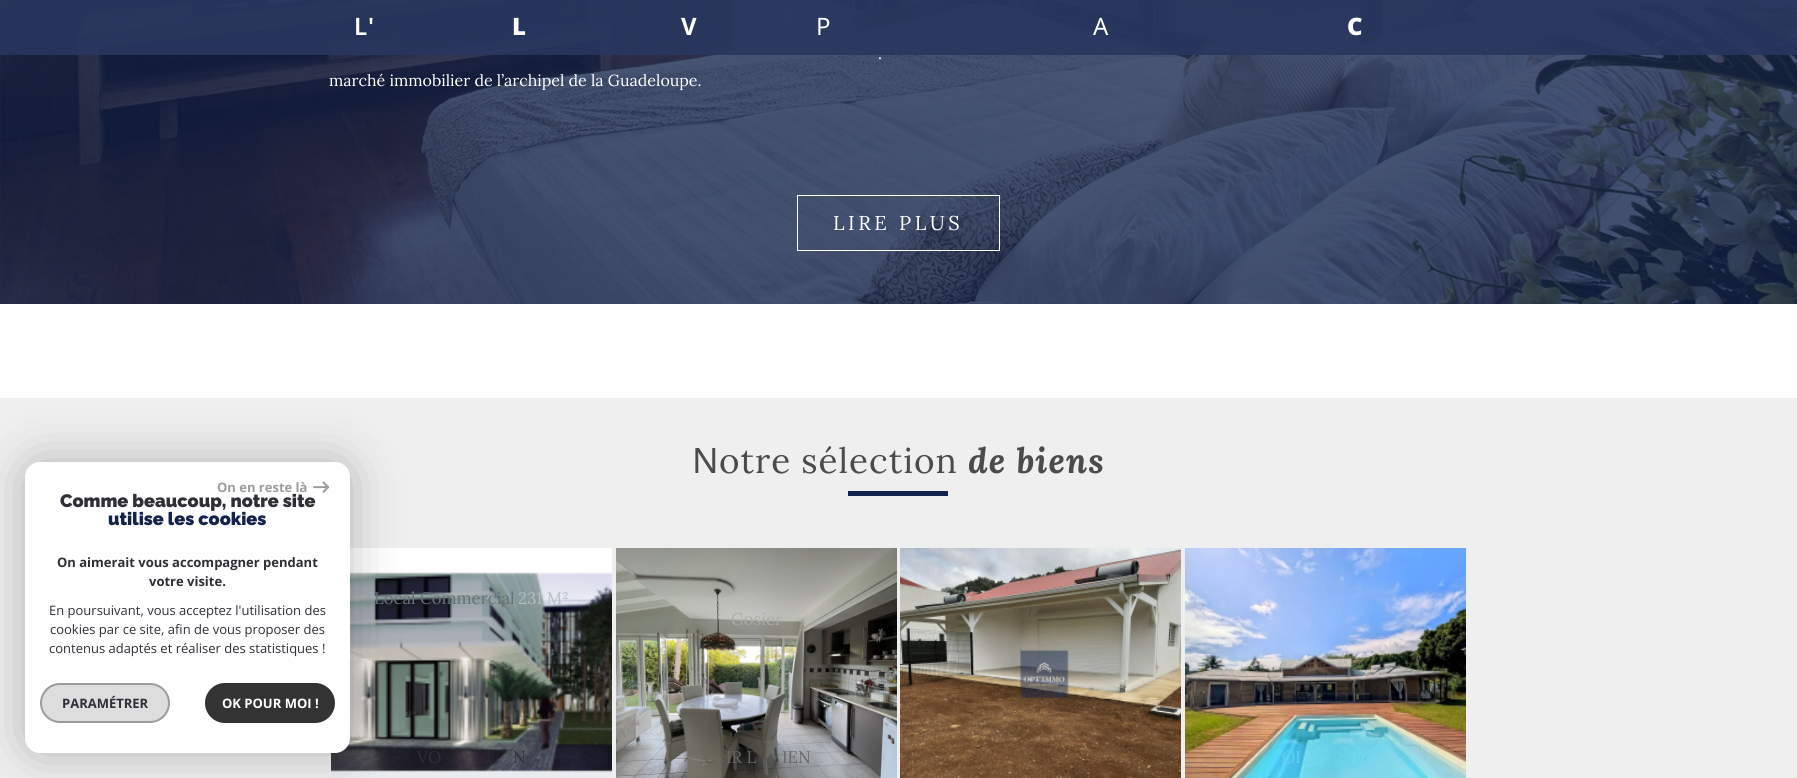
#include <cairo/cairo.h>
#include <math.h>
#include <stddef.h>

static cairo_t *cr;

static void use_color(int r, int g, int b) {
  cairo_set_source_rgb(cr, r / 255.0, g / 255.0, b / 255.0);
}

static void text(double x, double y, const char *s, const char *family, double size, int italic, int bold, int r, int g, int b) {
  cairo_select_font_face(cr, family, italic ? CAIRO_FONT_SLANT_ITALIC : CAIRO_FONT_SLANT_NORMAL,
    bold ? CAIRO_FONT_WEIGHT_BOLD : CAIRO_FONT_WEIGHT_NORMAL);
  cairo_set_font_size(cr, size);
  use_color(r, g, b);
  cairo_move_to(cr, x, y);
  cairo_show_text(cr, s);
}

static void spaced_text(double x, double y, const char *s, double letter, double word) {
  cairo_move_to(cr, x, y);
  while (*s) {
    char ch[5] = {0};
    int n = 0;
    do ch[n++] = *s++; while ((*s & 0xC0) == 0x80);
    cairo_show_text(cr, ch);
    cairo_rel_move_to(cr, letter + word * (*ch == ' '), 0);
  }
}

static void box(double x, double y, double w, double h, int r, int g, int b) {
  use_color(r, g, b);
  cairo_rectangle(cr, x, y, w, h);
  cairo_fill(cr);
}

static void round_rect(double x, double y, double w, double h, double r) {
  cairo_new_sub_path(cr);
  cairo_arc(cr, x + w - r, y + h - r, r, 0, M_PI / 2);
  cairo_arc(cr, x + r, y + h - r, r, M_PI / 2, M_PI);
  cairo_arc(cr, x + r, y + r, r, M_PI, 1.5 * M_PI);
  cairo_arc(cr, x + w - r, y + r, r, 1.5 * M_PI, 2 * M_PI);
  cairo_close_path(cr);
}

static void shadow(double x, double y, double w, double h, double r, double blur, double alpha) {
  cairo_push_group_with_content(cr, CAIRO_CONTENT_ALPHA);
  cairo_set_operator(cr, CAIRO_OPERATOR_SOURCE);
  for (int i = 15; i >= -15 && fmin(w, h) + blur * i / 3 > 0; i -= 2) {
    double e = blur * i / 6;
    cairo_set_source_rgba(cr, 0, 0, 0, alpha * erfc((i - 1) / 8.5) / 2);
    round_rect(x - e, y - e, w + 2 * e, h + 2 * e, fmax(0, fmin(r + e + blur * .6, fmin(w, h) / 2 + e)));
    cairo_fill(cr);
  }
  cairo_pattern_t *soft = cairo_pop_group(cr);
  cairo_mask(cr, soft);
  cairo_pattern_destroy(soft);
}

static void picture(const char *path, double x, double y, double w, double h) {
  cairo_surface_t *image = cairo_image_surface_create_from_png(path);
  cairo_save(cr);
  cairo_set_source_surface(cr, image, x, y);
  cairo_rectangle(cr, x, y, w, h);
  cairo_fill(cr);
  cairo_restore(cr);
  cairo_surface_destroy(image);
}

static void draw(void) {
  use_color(255, 255, 255);
  cairo_paint(cr);
  picture("img_01.png", 0, 0, 1797, 304);
  cairo_set_source_rgba(cr, 0.157, 0.216, 0.373, 0.9);
  cairo_rectangle(cr, 0, 0, 1797, 55);
  cairo_fill(cr);
  cairo_rectangle(cr, 797.5, 195.5, 202, 55);
  use_color(255, 255, 255);
  cairo_set_line_width(cr, 1);
  cairo_stroke(cr);
  box(0, 398, 1797, 380, 239, 239, 239);
  picture("img_03.png", 331, 548, 281, 230);
  use_color(0, 0, 0);
  shadow(25, 462, 325, 291, 15, 25, 0.25);
  use_color(255, 255, 255);
  round_rect(25, 462, 325, 291, 15);
  cairo_fill(cr);
  picture("img_02.png", 313, 481, 16, 12);
  use_color(221, 221, 221);
  round_rect(41, 684, 128, 38, 19);
  cairo_fill_preserve(cr);
  use_color(156, 156, 156);
  cairo_set_line_width(cr, 2);
  cairo_stroke(cr);
  use_color(51, 51, 51);
  round_rect(206, 684, 128, 38, 19);
  cairo_fill_preserve(cr);
  cairo_stroke(cr);
  box(848, 491, 100, 5, 20, 35, 75);
  picture("img_04.png", 616, 548, 281, 230);
  picture("img_05.png", 900, 548, 281, 230);
  picture("img_06.png", 1185, 548, 281, 230);
  cairo_select_font_face(cr, "Noto Sans SemiBold", CAIRO_FONT_SLANT_NORMAL, CAIRO_FONT_WEIGHT_NORMAL);
  cairo_set_font_size(cr, 24);
  use_color(255, 255, 255);
  spaced_text(354, 35, "L'", 1, 0);
  cairo_select_font_face(cr, "Noto Sans Black", CAIRO_FONT_SLANT_NORMAL, CAIRO_FONT_WEIGHT_NORMAL);
  spaced_text(512, 35, "L", 1, 0);
  cairo_select_font_face(cr, "Noto Sans", CAIRO_FONT_SLANT_NORMAL, CAIRO_FONT_WEIGHT_BOLD);
  spaced_text(681, 35, "V", 1, 0);
  cairo_select_font_face(cr, "Noto Sans", CAIRO_FONT_SLANT_NORMAL, CAIRO_FONT_WEIGHT_NORMAL);
  spaced_text(816, 35, "P", 1, 0);
  spaced_text(1093, 35, "A", 1, 0);
  cairo_select_font_face(cr, "Noto Sans Black", CAIRO_FONT_SLANT_NORMAL, CAIRO_FONT_WEIGHT_NORMAL);
  spaced_text(1347, 35, "C", 1, 0);
  text(878, 59, ".", "Lora", 16, 0, 0, 255, 255, 255);
  text(329, 86, "marché immobilier de l’archipel de la Guadeloupe.", "Lora", 16, 0, 0, 255, 255, 255);
  cairo_set_font_size(cr, 20);
  spaced_text(833, 230, "LIRE PLUS", 3.5, 0);
  text(217, 492, "On en reste là", "Open Sans", 13, 0, 1, 156, 156, 156);
  text(60, 507, "Comme beaucoup, notre site", "Raleway Thin", 18, 0, 0, 48, 47, 56);
  text(108, 525, "utilise les cookies", "Raleway Thin", 18, 0, 0, 20, 35, 75);
  text(57, 567, "On aimerait vous accompagner pendant", "Open Sans", 13, 0, 1, 48, 47, 56);
  text(149, 586, "votre visite.", "Open Sans", 13, 0, 1, 48, 47, 56);
  text(49, 615, "En poursuivant, vous acceptez l'utilisation des", "Open Sans", 13, 0, 0, 48, 47, 56);
  text(50, 634, "cookies par ce site, afin de vous proposer des", "Open Sans", 13, 0, 0, 48, 47, 56);
  text(49, 653, "contenus adaptés et réaliser des statistiques !", "Open Sans", 13, 0, 0, 48, 47, 56);
  text(62, 708, "PARAMÉTRER", "Open Sans", 13, 0, 1, 48, 47, 56);
  text(222, 708, "OK POUR MOI !", "Open Sans", 13, 0, 1, 255, 255, 255);
  cairo_select_font_face(cr, "Noto Sans", CAIRO_FONT_SLANT_NORMAL, CAIRO_FONT_WEIGHT_NORMAL);
  cairo_set_font_size(cr, 35);
  use_color(75, 75, 75);
  spaced_text(692, 473, "N", 1, 0);
  cairo_select_font_face(cr, "Lora", CAIRO_FONT_SLANT_NORMAL, CAIRO_FONT_WEIGHT_NORMAL);
  spaced_text(719, 473, "otre sélection", 1, 0);
  cairo_select_font_face(cr, "Lora", CAIRO_FONT_SLANT_ITALIC, CAIRO_FONT_WEIGHT_BOLD);
  spaced_text(968, 473, "de biens", 1, 0);
  text(374, 604, "Local Commercial", "Lora", 16.75, 0, 0, 103, 114, 118);
  text(518, 604, "231 M²", "Lora", 16.75, 0, 0, 178, 189, 194);
  text(417, 763, "VO", "Lora", 16.75, 0, 0, 48, 47, 56);
  text(513, 763, "N", "Lora", 16.75, 0, 0, 48, 47, 56);
  text(731, 625, "Gosier", "Lora", 16.75, 0, 0, 171, 171, 165);
  text(726, 763, "IR L", "Lora", 16.75, 0, 0, 102, 103, 100);
  text(782, 763, "IEN", "Lora", 16.75, 0, 0, 102, 103, 100);
  text(1282, 763, "OI", "Lora", 16.75, 0, 0, 99, 208, 235);
}

int main(void) {
  cairo_surface_t *surface = cairo_image_surface_create(CAIRO_FORMAT_RGB24, 1797, 778);
  cr = cairo_create(surface);
  cairo_font_options_t *options = cairo_font_options_create();
  cairo_font_options_set_hint_metrics(options, CAIRO_HINT_METRICS_OFF);
  cairo_font_options_set_hint_style(options, CAIRO_HINT_STYLE_NONE);
  cairo_set_font_options(cr, options);
  cairo_set_miter_limit(cr, 4);
  draw();
  cairo_surface_write_to_png(surface, "out.png");
  cairo_font_options_destroy(options);
  cairo_destroy(cr);
  cairo_surface_destroy(surface);
  return 0;
}
